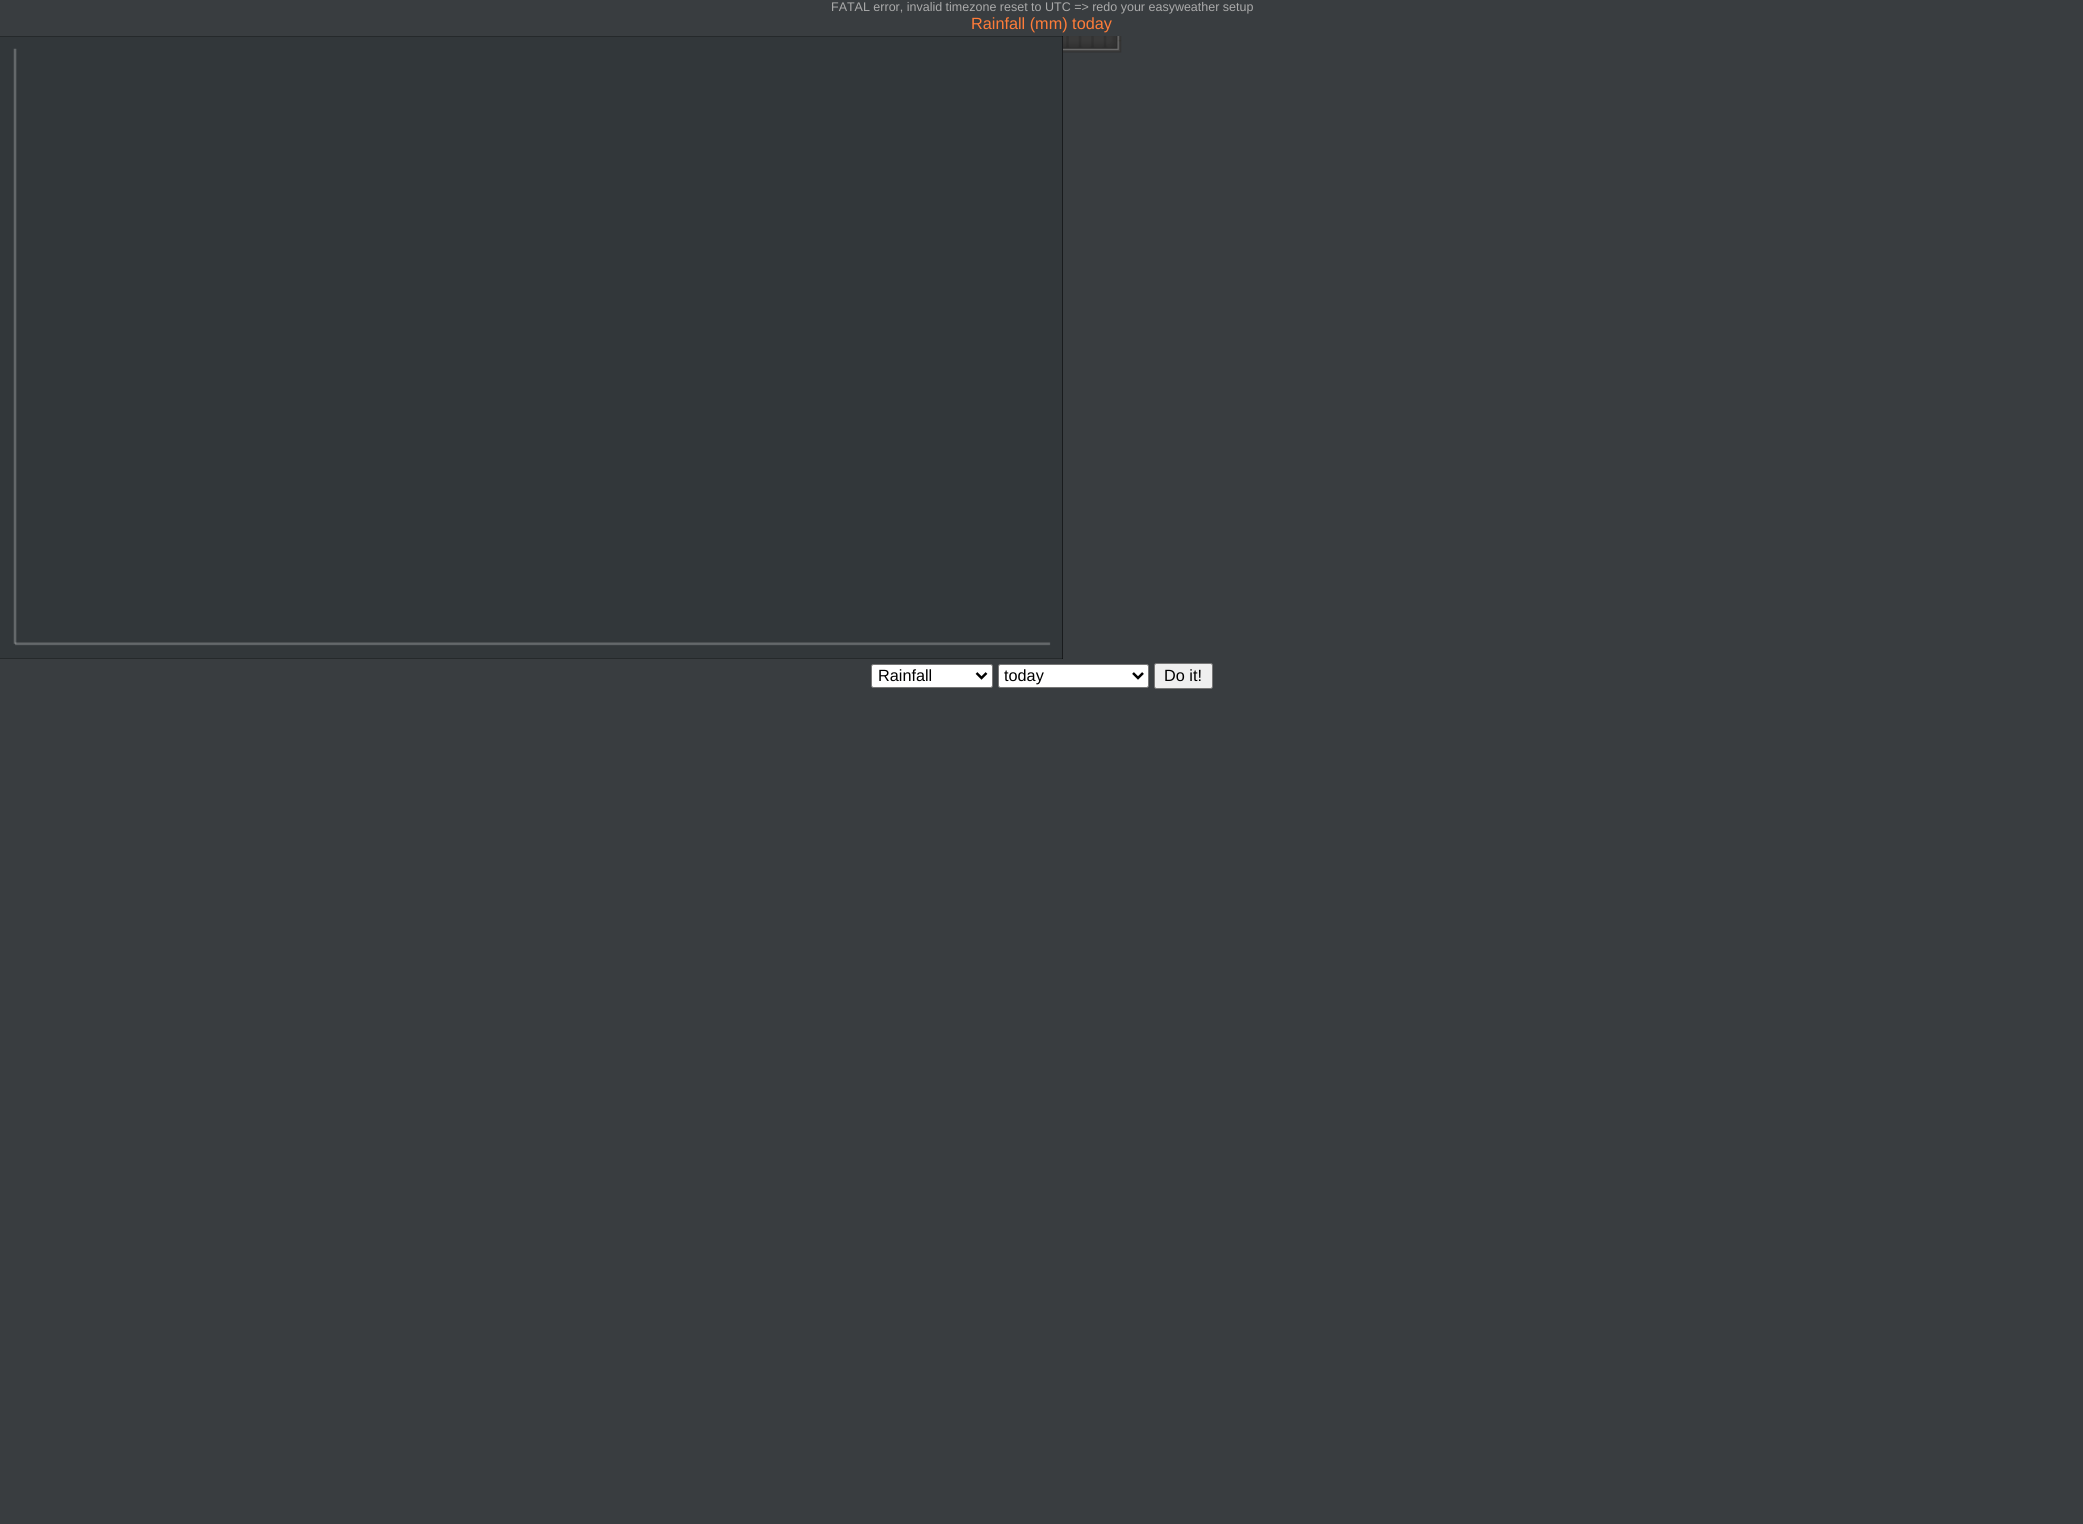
#include <cairo/cairo.h>
#include <math.h>
#include <stddef.h>

static cairo_t *cr;

static void use_color(int r, int g, int b) {
  cairo_set_source_rgb(cr, r / 255.0, g / 255.0, b / 255.0);
}

static void text(double x, double y, const char *s, const char *family, double size, int italic, int bold, int r, int g, int b) {
  cairo_select_font_face(cr, family, italic ? CAIRO_FONT_SLANT_ITALIC : CAIRO_FONT_SLANT_NORMAL,
    bold ? CAIRO_FONT_WEIGHT_BOLD : CAIRO_FONT_WEIGHT_NORMAL);
  cairo_set_font_size(cr, size);
  use_color(r, g, b);
  cairo_move_to(cr, x, y);
  cairo_show_text(cr, s);
}

static void box(double x, double y, double w, double h, int r, int g, int b) {
  use_color(r, g, b);
  cairo_rectangle(cr, x, y, w, h);
  cairo_fill(cr);
}

static void round_rect(double x, double y, double w, double h, double r) {
  cairo_new_sub_path(cr);
  cairo_arc(cr, x + w - r, y + h - r, r, 0, M_PI / 2);
  cairo_arc(cr, x + r, y + h - r, r, M_PI / 2, M_PI);
  cairo_arc(cr, x + r, y + r, r, M_PI, 1.5 * M_PI);
  cairo_arc(cr, x + w - r, y + r, r, 1.5 * M_PI, 2 * M_PI);
  cairo_close_path(cr);
}

static void picture(const char *path, double x, double y, double w, double h) {
  cairo_surface_t *image = cairo_image_surface_create_from_png(path);
  cairo_save(cr);
  cairo_set_source_surface(cr, image, x, y);
  cairo_rectangle(cr, x, y, w, h);
  cairo_fill(cr);
  cairo_restore(cr);
  cairo_surface_destroy(image);
}

static void draw(void) {
  use_color(57, 61, 64);
  cairo_paint(cr);
  picture("img_01.png", 1063, 36, 59, 17);
  box(0, 36, 1063, 623, 0, 0, 0);
  picture("img_02.png", 0, 36, 1063, 623);
  use_color(255, 255, 255);
  round_rect(871.5, 664.5, 121, 23, 2);
  cairo_fill_preserve(cr);
  use_color(118, 118, 118);
  cairo_set_line_width(cr, 1);
  cairo_stroke(cr);
  cairo_new_path(cr);
  cairo_move_to(cr, 976.5, 673);
  cairo_line_to(cr, 981.5, 678);
  cairo_line_to(cr, 986.5, 673);
  use_color(0, 0, 0);
  cairo_set_line_width(cr, 2.5);
  cairo_stroke(cr);
  use_color(255, 255, 255);
  round_rect(998.5, 664.5, 150, 23, 2);
  cairo_fill_preserve(cr);
  use_color(118, 118, 118);
  cairo_set_line_width(cr, 1);
  cairo_stroke(cr);
  cairo_new_path(cr);
  cairo_move_to(cr, 1133, 673);
  cairo_line_to(cr, 1138, 678);
  cairo_line_to(cr, 1143, 673);
  use_color(0, 0, 0);
  cairo_set_line_width(cr, 2.5);
  cairo_stroke(cr);
  use_color(239, 239, 239);
  round_rect(1154.5, 663.5, 58, 25, 2);
  cairo_fill_preserve(cr);
  use_color(118, 118, 118);
  cairo_set_line_width(cr, 1);
  cairo_stroke(cr);
  text(831, 11, "FATAL error, invalid timezone reset to UTC => redo your easyweather setup", "Liberation Sans", 12.5, 0, 0, 170, 170, 170);
  text(971, 29, "Rainfall (mm) today", "Liberation Sans", 16.25, 0, 0, 255, 124, 57);
  text(878, 681, "Rainfall", "Liberation Sans", 16.25, 0, 0, 0, 0, 0);
  text(1004, 681, "today", "Liberation Sans", 16.25, 0, 0, 0, 0, 0);
  text(1164, 681, "Do it!", "Liberation Sans", 16.25, 0, 0, 0, 0, 0);
}

int main(void) {
  cairo_surface_t *surface = cairo_image_surface_create(CAIRO_FORMAT_RGB24, 2083, 1524);
  cr = cairo_create(surface);
  cairo_font_options_t *options = cairo_font_options_create();
  cairo_font_options_set_hint_metrics(options, CAIRO_HINT_METRICS_OFF);
  cairo_font_options_set_hint_style(options, CAIRO_HINT_STYLE_NONE);
  cairo_set_font_options(cr, options);
  cairo_set_miter_limit(cr, 4);
  draw();
  cairo_surface_write_to_png(surface, "out.png");
  cairo_font_options_destroy(options);
  cairo_destroy(cr);
  cairo_surface_destroy(surface);
  return 0;
}
